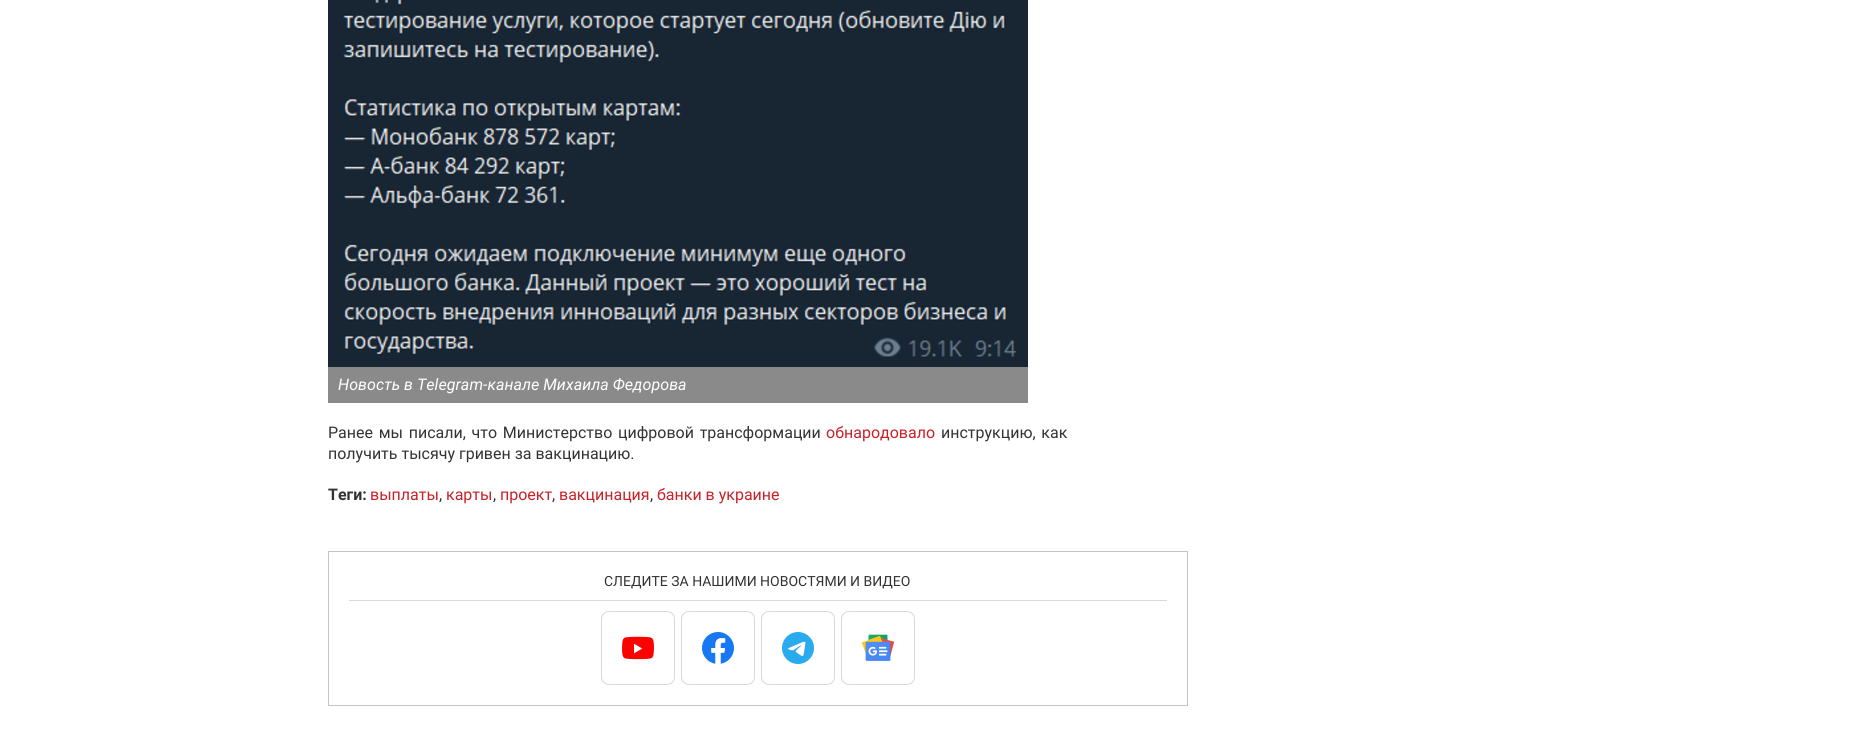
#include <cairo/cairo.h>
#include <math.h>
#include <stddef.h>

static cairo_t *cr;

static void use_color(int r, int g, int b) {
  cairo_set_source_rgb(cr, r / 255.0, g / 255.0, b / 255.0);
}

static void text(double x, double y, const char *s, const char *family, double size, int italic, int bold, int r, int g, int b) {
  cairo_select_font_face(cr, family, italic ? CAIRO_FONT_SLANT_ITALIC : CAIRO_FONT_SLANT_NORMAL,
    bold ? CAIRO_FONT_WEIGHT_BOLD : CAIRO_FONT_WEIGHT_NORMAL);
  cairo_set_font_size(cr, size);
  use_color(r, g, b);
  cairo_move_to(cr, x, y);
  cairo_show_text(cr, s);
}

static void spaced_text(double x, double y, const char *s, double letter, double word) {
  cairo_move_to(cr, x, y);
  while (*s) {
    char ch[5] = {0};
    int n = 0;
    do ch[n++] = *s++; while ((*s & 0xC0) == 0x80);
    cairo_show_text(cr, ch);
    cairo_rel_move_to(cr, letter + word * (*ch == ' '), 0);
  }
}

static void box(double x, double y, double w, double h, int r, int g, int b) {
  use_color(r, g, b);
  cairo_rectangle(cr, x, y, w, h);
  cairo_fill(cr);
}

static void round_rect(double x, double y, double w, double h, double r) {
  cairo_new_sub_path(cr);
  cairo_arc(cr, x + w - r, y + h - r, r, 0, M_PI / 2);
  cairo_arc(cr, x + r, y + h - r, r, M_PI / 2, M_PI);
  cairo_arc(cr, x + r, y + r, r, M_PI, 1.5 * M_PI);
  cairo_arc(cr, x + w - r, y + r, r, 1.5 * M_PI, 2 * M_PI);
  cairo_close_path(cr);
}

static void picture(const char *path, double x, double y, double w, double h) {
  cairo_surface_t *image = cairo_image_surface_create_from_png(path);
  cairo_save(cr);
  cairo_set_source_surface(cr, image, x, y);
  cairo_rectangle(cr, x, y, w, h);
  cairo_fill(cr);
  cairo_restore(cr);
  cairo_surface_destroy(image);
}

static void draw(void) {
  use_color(255, 255, 255);
  cairo_paint(cr);
  picture("img_01.png", 328, 0, 700, 367);
  box(328, 367, 700, 36, 138, 138, 138);
  cairo_rectangle(cr, 328.5, 551.5, 859, 154);
  use_color(196, 196, 196);
  cairo_set_line_width(cr, 1);
  cairo_stroke(cr);
  box(349, 600, 818, 1, 217, 217, 217);
  round_rect(601.5, 611.5, 73, 73, 7.5);
  cairo_stroke(cr);
  picture("img_02.png", 622, 636, 32, 24);
  round_rect(681.5, 611.5, 73, 73, 7.5);
  cairo_stroke(cr);
  picture("img_03.png", 702, 632, 32, 32);
  round_rect(761.5, 611.5, 73, 73, 7.5);
  cairo_stroke(cr);
  picture("img_04.png", 782, 632, 32, 32);
  round_rect(841.5, 611.5, 73, 73, 7.5);
  cairo_stroke(cr);
  picture("img_05.png", 862, 634, 32, 27);
  text(338, 390, "Новость в Telegram-канале Михаила Федорова", "Roboto", 16, 1, 0, 255, 255, 255);
  cairo_select_font_face(cr, "Roboto", CAIRO_FONT_SLANT_NORMAL, CAIRO_FONT_WEIGHT_NORMAL);
  use_color(51, 51, 51);
  spaced_text(328, 438, "Ранее мы писали, что Министерство цифровой трансформации", 0, 1.75);
  text(826, 438, "обнародовало", "Roboto", 16, 0, 0, 200, 33, 39);
  use_color(51, 51, 51);
  spaced_text(941, 438, "инструкцию, как", 0, 1.75);
  text(328, 459, "получить тысячу гривен за вакцинацию.", "Roboto", 16, 0, 0, 51, 51, 51);
  text(328, 500, "Теги:", "Roboto", 16, 0, 1, 51, 51, 51);
  text(370, 500, "выплаты", "Roboto", 16, 0, 0, 200, 33, 39);
  text(439, 500, ",", "Roboto", 16, 0, 0, 51, 51, 51);
  text(446, 500, "карты", "Roboto", 16, 0, 0, 200, 33, 39);
  text(493, 500, ",", "Roboto", 16, 0, 0, 51, 51, 51);
  text(500, 500, "проект", "Roboto", 16, 0, 0, 200, 33, 39);
  text(552, 500, ",", "Roboto", 16, 0, 0, 51, 51, 51);
  text(559, 500, "вакцинация", "Roboto", 16, 0, 0, 200, 33, 39);
  text(650, 500, ",", "Roboto", 16, 0, 0, 51, 51, 51);
  text(657, 500, "банки в украине", "Roboto", 16, 0, 0, 200, 33, 39);
  text(604, 586, "СЛЕДИТЕ ЗА НАШИМИ НОВОСТЯМИ И ВИДЕО", "Roboto", 14, 0, 0, 51, 51, 51);
}

int main(void) {
  cairo_surface_t *surface = cairo_image_surface_create(CAIRO_FORMAT_RGB24, 1855, 729);
  cr = cairo_create(surface);
  cairo_font_options_t *options = cairo_font_options_create();
  cairo_font_options_set_hint_metrics(options, CAIRO_HINT_METRICS_OFF);
  cairo_font_options_set_hint_style(options, CAIRO_HINT_STYLE_NONE);
  cairo_set_font_options(cr, options);
  cairo_set_miter_limit(cr, 4);
  draw();
  cairo_surface_write_to_png(surface, "out.png");
  cairo_font_options_destroy(options);
  cairo_destroy(cr);
  cairo_surface_destroy(surface);
  return 0;
}
